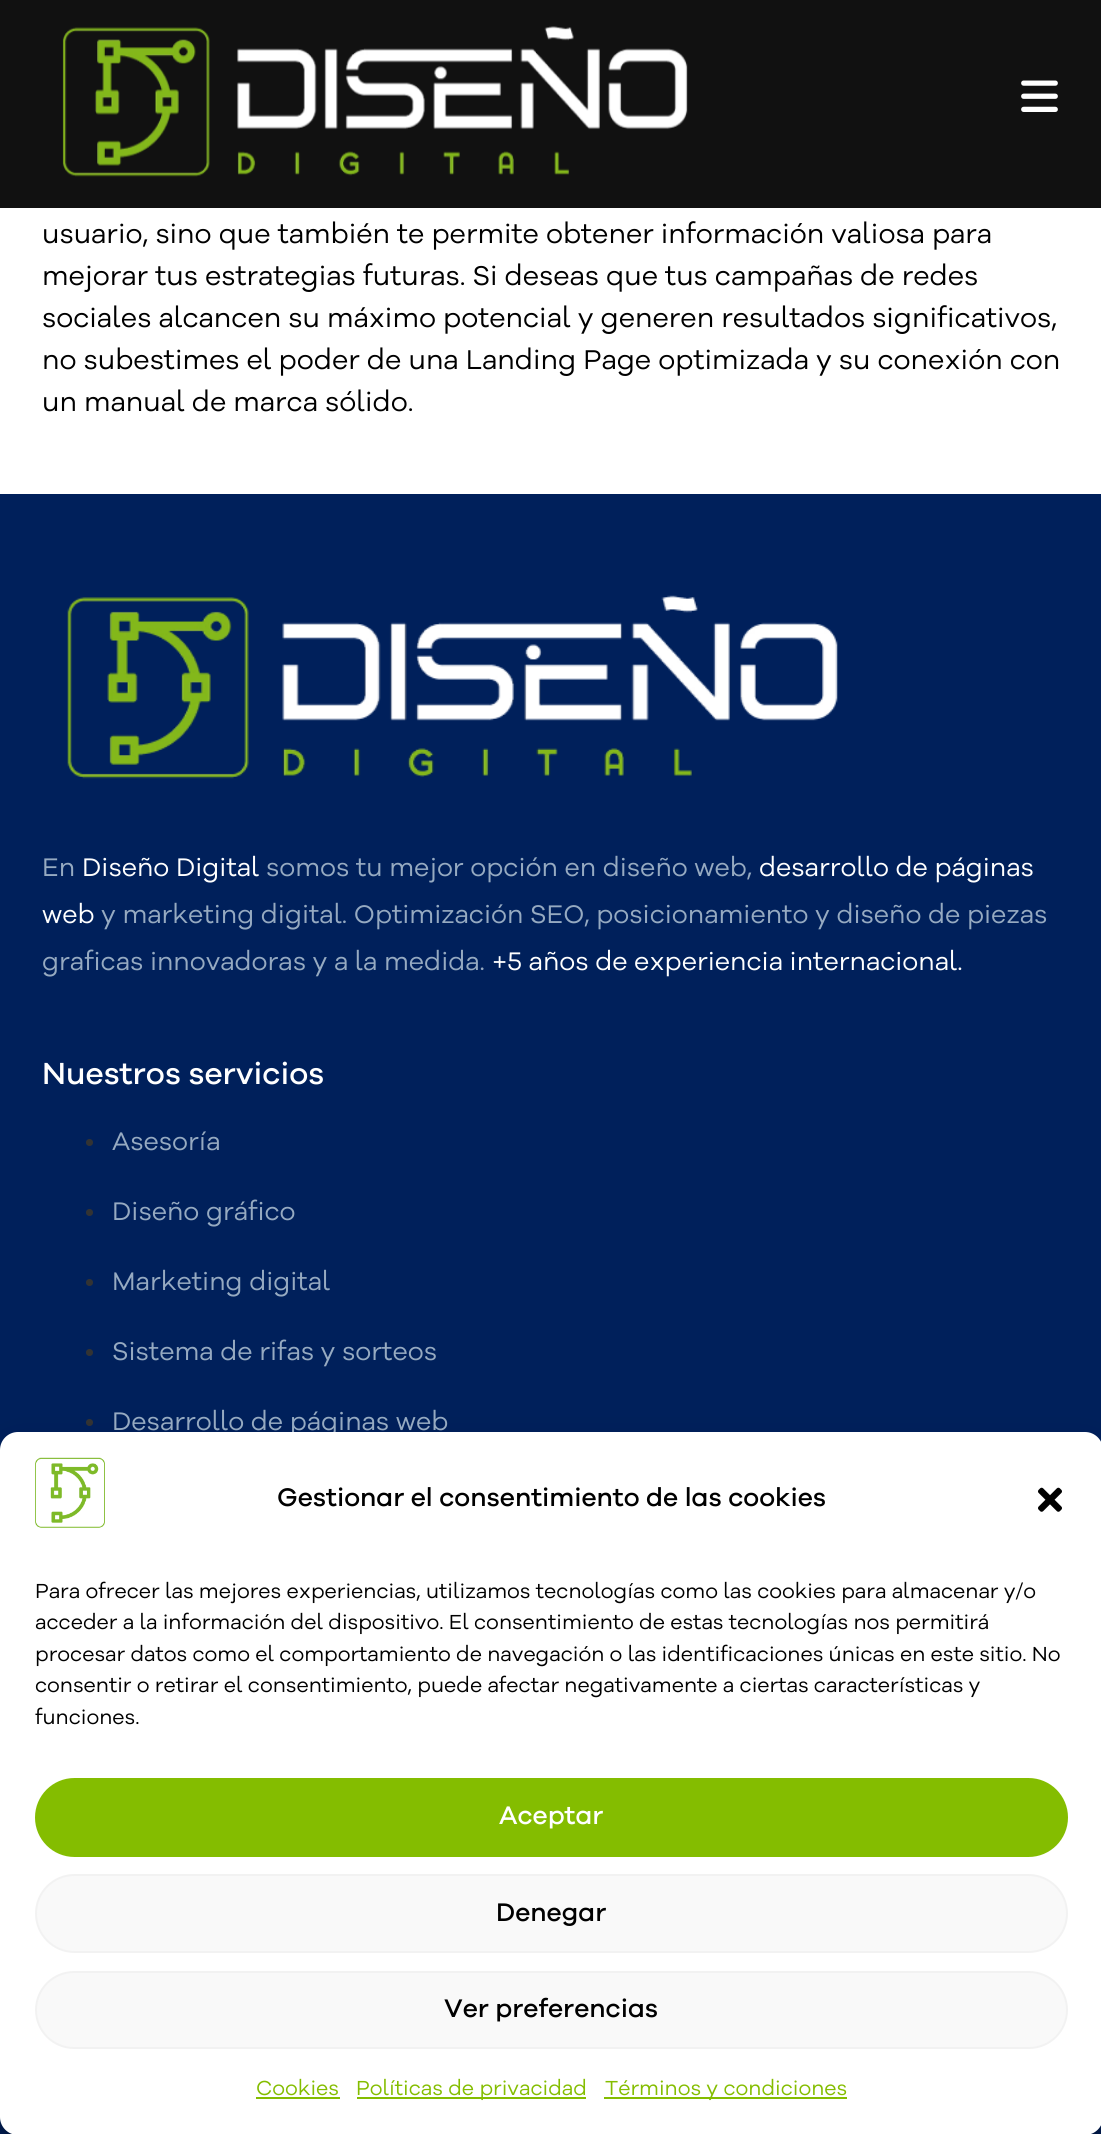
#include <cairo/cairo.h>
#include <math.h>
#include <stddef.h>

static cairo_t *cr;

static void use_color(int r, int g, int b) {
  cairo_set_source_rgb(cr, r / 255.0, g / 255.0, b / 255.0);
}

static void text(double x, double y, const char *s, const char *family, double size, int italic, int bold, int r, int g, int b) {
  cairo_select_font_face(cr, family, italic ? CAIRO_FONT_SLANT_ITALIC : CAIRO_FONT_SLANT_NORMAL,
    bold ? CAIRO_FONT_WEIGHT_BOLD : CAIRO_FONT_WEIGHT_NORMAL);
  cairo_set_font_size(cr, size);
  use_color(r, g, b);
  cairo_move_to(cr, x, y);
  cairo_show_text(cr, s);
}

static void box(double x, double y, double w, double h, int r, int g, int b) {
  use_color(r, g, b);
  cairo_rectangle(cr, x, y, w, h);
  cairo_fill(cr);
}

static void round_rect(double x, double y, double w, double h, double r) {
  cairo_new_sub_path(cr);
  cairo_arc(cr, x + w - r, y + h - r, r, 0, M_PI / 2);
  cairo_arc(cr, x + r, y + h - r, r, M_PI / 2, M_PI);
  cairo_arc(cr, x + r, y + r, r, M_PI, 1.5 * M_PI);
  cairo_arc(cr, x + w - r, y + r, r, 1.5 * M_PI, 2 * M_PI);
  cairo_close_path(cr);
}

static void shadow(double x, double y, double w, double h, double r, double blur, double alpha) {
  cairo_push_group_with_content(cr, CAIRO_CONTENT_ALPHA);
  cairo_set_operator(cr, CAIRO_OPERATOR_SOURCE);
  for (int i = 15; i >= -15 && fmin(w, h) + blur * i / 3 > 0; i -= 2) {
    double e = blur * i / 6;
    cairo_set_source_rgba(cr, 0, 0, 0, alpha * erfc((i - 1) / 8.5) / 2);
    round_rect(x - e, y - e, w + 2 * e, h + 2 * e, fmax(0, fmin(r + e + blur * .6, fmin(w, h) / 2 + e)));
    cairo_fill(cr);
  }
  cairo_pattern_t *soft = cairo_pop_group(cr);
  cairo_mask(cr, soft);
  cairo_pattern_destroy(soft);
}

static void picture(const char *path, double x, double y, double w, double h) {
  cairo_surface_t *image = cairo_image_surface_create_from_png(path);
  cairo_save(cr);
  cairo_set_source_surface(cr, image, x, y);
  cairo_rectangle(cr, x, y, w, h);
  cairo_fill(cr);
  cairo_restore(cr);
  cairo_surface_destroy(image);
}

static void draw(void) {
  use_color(255, 255, 255);
  cairo_paint(cr);
  box(0, 0, 1101, 208, 17, 17, 17);
  picture("img_01.png", 62, 26, 626, 151);
  picture("img_02.png", 1021, 80, 37, 32);
  box(0, 494, 1101, 1640, 0, 32, 91);
  picture("img_03.png", 67, 595, 771, 184);
  use_color(51, 51, 51);
  cairo_arc(cr, 89.5, 1142.5, 3.5, 0, 2 * M_PI);
  cairo_fill(cr);
  cairo_arc(cr, 89.5, 1212.5, 3.5, 0, 2 * M_PI);
  cairo_fill(cr);
  cairo_arc(cr, 89.5, 1282.5, 3.5, 0, 2 * M_PI);
  cairo_fill(cr);
  cairo_arc(cr, 89.5, 1352.5, 3.5, 0, 2 * M_PI);
  cairo_fill(cr);
  cairo_arc(cr, 89.5, 1422.5, 3.5, 0, 2 * M_PI);
  cairo_fill(cr);
  use_color(0, 0, 0);
  shadow(0, 1442, 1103, 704, 18, 5, 0.23);
  shadow(0, 1449, 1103, 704, 18, 17.5, 0.19);
  text(42, 243, "usuario, sino que también te permite obtener información valiosa para", "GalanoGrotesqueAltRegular", 28, 0, 0, 0, 0, 0);
  text(42, 285, "mejorar tus estrategias futuras. Si deseas que tus campañas de redes", "GalanoGrotesqueAltRegular", 28, 0, 0, 0, 0, 0);
  text(42, 327, "sociales alcancen su máximo potencial y generen resultados significativos,", "GalanoGrotesqueAltRegular", 28, 0, 0, 0, 0, 0);
  text(42, 369, "no subestimes el poder de una Landing Page optimizada y su conexión con", "GalanoGrotesqueAltRegular", 28, 0, 0, 0, 0, 0);
  text(42, 411, "un manual de marca sólido.", "GalanoGrotesqueAltRegular", 28, 0, 0, 0, 0, 0);
  text(42, 876, "En", "GalanoGrotesqueAltRegular", 26.25, 0, 0, 150, 170, 193);
  text(82, 876, "Diseño Digital", "GalanoGrotesqueAltRegular", 26.25, 0, 0, 255, 255, 255);
  text(266, 876, "somos tu mejor opción en diseño web,", "GalanoGrotesqueAltRegular", 26.25, 0, 0, 150, 170, 193);
  text(759, 876, "desarrollo de páginas", "GalanoGrotesqueAltRegular", 26.25, 0, 0, 255, 255, 255);
  text(42, 923, "web", "GalanoGrotesqueAltRegular", 26.25, 0, 0, 255, 255, 255);
  text(101, 923, "y marketing digital. Optimización SEO, posicionamiento y diseño de piezas", "GalanoGrotesqueAltRegular", 26.25, 0, 0, 150, 170, 193);
  text(42, 970, "graficas innovadoras y a la medida.", "GalanoGrotesqueAltRegular", 26.25, 0, 0, 150, 170, 193);
  text(492, 970, "+5 años de experiencia internacional.", "GalanoGrotesqueAltRegular", 26.25, 0, 0, 255, 255, 255);
  text(42, 1084, "Nuestros servicios", "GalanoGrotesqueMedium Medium", 31.5, 0, 0, 255, 255, 255);
  text(112, 1150, "Asesoría", "GalanoGrotesqueAltRegular", 26.25, 0, 0, 150, 170, 193);
  text(112, 1220, "Diseño gráfico", "GalanoGrotesqueAltRegular", 26.25, 0, 0, 150, 170, 193);
  text(112, 1290, "Marketing digital", "GalanoGrotesqueAltRegular", 26.25, 0, 0, 150, 170, 193);
  text(112, 1360, "Sistema de rifas y sorteos", "GalanoGrotesqueAltRegular", 26.25, 0, 0, 150, 170, 193);
  text(112, 1430, "Desarrollo de páginas web", "GalanoGrotesqueAltRegular", 26.25, 0, 0, 150, 170, 193);
  use_color(255, 255, 255);
  round_rect(0, 1432, 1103, 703, 18);
  cairo_fill(cr);
  picture("img_04.png", 35, 1457, 70, 71);
  text(277, 1506, "Gestionar el consentimiento de las cookies", "GalanoGrotesqueMedium Medium", 26.25, 0, 0, 0, 0, 0);
  picture("img_05.png", 1038, 1487, 24, 25);
  text(35, 1598, "Para ofrecer las mejores experiencias, utilizamos tecnologías como las cookies para almacenar y/o", "GalanoGrotesqueAltRegular", 21, 0, 0, 0, 0, 0);
  text(35, 1629, "acceder a la información del dispositivo. El consentimiento de estas tecnologías nos permitirá", "GalanoGrotesqueAltRegular", 21, 0, 0, 0, 0, 0);
  text(35, 1661, "procesar datos como el comportamiento de navegación o las identificaciones únicas en este sitio. No", "GalanoGrotesqueAltRegular", 21, 0, 0, 0, 0, 0);
  text(35, 1692, "consentir o retirar el consentimiento, puede afectar negativamente a ciertas características y", "GalanoGrotesqueAltRegular", 21, 0, 0, 0, 0, 0);
  text(35, 1724, "funciones.", "GalanoGrotesqueAltRegular", 21, 0, 0, 0, 0, 0);
  use_color(132, 189, 0);
  round_rect(36, 1779, 1031, 77, 38.5);
  cairo_fill_preserve(cr);
  cairo_stroke(cr);
  text(499, 1824, "Aceptar", "GalanoGrotesqueMedium Medium", 26.25, 0, 0, 255, 255, 255);
  use_color(249, 249, 249);
  round_rect(36, 1875, 1031, 77, 38.5);
  cairo_fill_preserve(cr);
  use_color(242, 242, 242);
  cairo_stroke(cr);
  text(496, 1921, "Denegar", "GalanoGrotesqueMedium Medium", 26.25, 0, 0, 0, 0, 0);
  use_color(249, 249, 249);
  round_rect(36, 1972, 1031, 76, 38);
  cairo_fill_preserve(cr);
  use_color(242, 242, 242);
  cairo_stroke(cr);
  text(444, 2017, "Ver preferencias", "GalanoGrotesqueMedium Medium", 26.25, 0, 0, 0, 0, 0);
  text(256, 2095, "Cookies", "GalanoGrotesqueAltRegular", 21, 0, 0, 132, 189, 0);
  box(256, 2097, 84, 2, 132, 189, 0);
  box(357, 2097, 229, 2, 132, 189, 0);
  text(356, 2095, "Políticas de privacidad", "GalanoGrotesqueAltRegular", 21, 0, 0, 132, 189, 0);
  box(604, 2097, 243, 2, 132, 189, 0);
  text(605, 2095, "Términos y condiciones", "GalanoGrotesqueAltRegular", 21, 0, 0, 132, 189, 0);
}

int main(void) {
  cairo_surface_t *surface = cairo_image_surface_create(CAIRO_FORMAT_RGB24, 1101, 2134);
  cr = cairo_create(surface);
  cairo_font_options_t *options = cairo_font_options_create();
  cairo_font_options_set_hint_metrics(options, CAIRO_HINT_METRICS_OFF);
  cairo_font_options_set_hint_style(options, CAIRO_HINT_STYLE_NONE);
  cairo_set_font_options(cr, options);
  cairo_set_miter_limit(cr, 4);
  draw();
  cairo_surface_write_to_png(surface, "out.png");
  cairo_font_options_destroy(options);
  cairo_destroy(cr);
  cairo_surface_destroy(surface);
  return 0;
}
